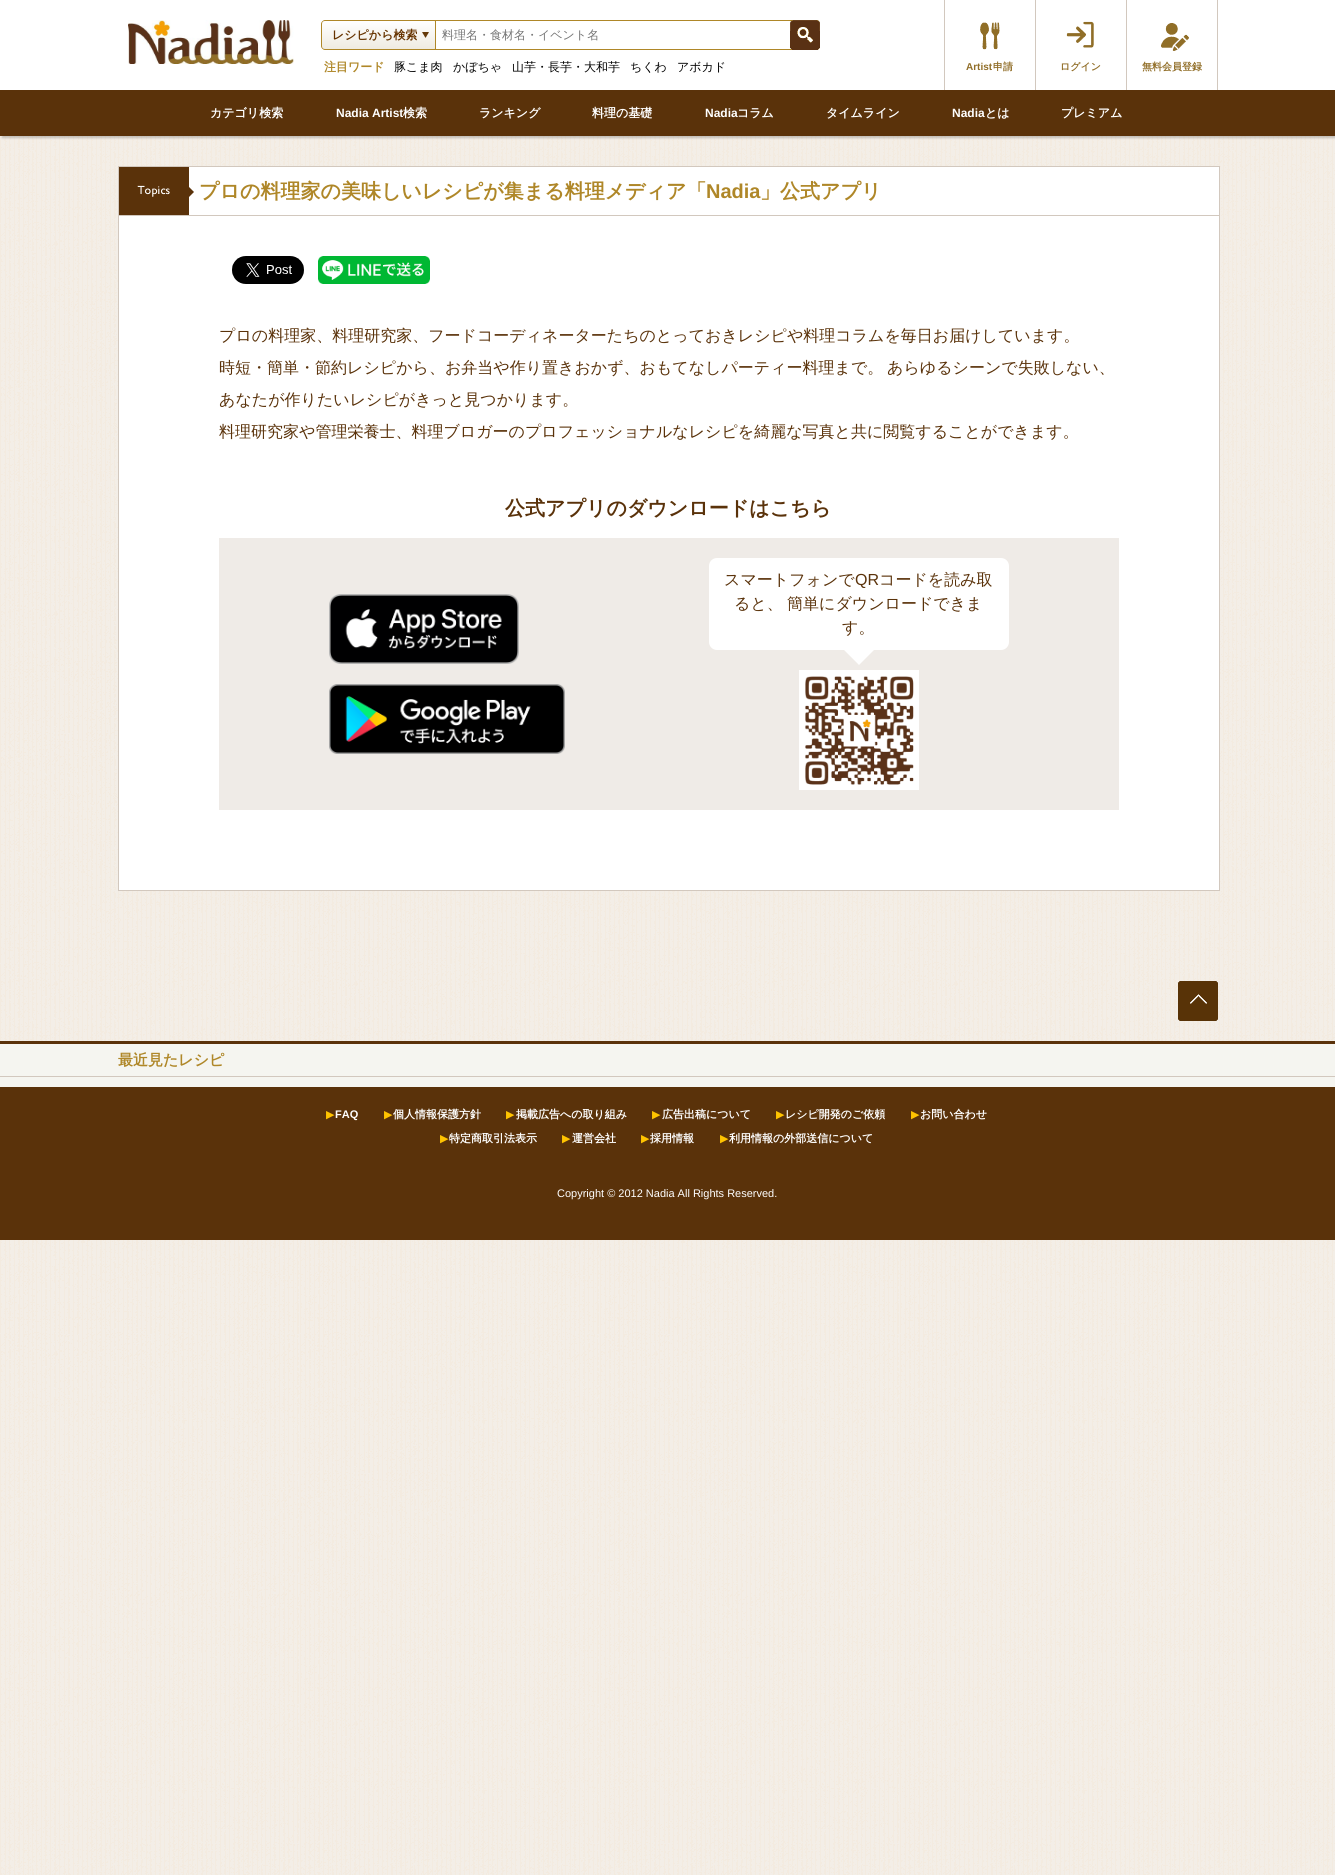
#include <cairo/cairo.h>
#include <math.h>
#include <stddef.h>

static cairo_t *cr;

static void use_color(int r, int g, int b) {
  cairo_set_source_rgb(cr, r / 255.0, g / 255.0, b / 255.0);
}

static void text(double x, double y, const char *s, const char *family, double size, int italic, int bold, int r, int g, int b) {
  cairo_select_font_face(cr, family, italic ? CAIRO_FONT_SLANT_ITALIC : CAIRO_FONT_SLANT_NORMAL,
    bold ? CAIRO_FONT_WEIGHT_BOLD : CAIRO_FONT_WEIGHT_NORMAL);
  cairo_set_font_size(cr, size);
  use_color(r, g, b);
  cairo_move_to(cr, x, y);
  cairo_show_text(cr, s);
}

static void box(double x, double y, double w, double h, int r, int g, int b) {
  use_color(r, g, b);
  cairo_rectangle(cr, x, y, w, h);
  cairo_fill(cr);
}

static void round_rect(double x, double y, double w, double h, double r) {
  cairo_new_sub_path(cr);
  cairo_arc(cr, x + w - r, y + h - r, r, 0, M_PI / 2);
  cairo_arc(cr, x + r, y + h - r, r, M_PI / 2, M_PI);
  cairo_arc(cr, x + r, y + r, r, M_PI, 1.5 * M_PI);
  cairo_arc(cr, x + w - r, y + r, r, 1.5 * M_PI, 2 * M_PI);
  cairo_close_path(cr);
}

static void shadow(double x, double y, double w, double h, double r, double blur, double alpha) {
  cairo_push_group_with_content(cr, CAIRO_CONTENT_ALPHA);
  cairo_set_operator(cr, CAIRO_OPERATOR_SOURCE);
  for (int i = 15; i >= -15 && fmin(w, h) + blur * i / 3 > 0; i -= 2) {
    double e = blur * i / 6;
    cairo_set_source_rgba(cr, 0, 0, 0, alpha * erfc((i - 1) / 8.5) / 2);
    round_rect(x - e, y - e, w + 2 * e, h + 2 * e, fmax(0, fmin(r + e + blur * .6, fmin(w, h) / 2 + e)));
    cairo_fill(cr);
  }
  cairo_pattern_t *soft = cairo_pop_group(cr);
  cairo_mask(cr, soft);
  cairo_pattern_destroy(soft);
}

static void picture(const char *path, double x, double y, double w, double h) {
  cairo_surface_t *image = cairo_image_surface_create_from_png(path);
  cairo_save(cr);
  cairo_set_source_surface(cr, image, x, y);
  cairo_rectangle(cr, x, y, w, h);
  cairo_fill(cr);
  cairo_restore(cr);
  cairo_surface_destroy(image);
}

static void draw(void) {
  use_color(255, 255, 255);
  cairo_paint(cr);
  picture("img_01.png", 0, 136, 1335, 1739);
  use_color(0, 0, 0);
  shadow(2, 2, 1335, 136, 0, 1, 0.2);
  box(0, 0, 1335, 90, 255, 255, 255);
  picture("img_02.png", 128, 20, 166, 44);
  round_rect(324.5, 20.5, 495, 29, 3.5);
  use_color(175, 135, 40);
  cairo_set_line_width(cr, 1);
  cairo_stroke(cr);
  picture("img_03.png", 322, 21, 113, 28);
  cairo_set_fill_rule(cr, CAIRO_FILL_RULE_EVEN_ODD);
  cairo_new_path(cr);
  cairo_move_to(cr, 325, 20);
  cairo_line_to(cr, 434, 20);
  cairo_curve_to(cr, 436, 20, 438, 22, 438, 24);
  cairo_line_to(cr, 438, 46);
  cairo_curve_to(cr, 438, 48, 436, 50, 434, 50);
  cairo_line_to(cr, 325, 50);
  cairo_curve_to(cr, 323, 50, 321, 48, 321, 46);
  cairo_line_to(cr, 321, 24);
  cairo_curve_to(cr, 321, 22, 323, 20, 325, 20);
  cairo_close_path(cr);
  cairo_move_to(cr, 325, 21);
  cairo_line_to(cr, 434, 21);
  cairo_curve_to(cr, 436, 21, 438, 22, 438, 24);
  cairo_line_to(cr, 438, 46);
  cairo_curve_to(cr, 438, 48, 436, 49, 434, 49);
  cairo_line_to(cr, 325, 49);
  cairo_curve_to(cr, 323, 49, 322, 48, 322, 46);
  cairo_line_to(cr, 322, 24);
  cairo_curve_to(cr, 322, 22, 323, 21, 325, 21);
  cairo_close_path(cr);
  cairo_fill(cr);
  box(436, 21, 2, 28, 255, 255, 255);
  box(435, 20, 1, 30, 175, 135, 40);
  picture("img_04.png", 790, 20, 30, 30);
  box(944, 0, 1, 90, 210, 200, 190);
  picture("img_05.png", 980, 22, 20, 28);
  box(1035, 0, 1, 90, 210, 200, 190);
  picture("img_06.png", 1066, 21, 28, 27);
  box(1126, 0, 1, 90, 210, 200, 190);
  picture("img_07.png", 1161, 23, 28, 28);
  box(1217, 0, 1, 90, 210, 200, 190);
  box(0, 90, 1335, 46, 90, 50, 10);
  use_color(255, 255, 255);
  cairo_rectangle(cr, 118.5, 166.5, 1101, 724);
  cairo_fill_preserve(cr);
  use_color(210, 200, 190);
  cairo_stroke(cr);
  box(119, 215, 1100, 1, 210, 200, 190);
  box(119, 167, 70, 48, 90, 50, 10);
  picture("img_08.png", 137, 185, 33, 12);
  cairo_set_fill_rule(cr, CAIRO_FILL_RULE_WINDING);
  cairo_new_path(cr);
  cairo_move_to(cr, 188, 198);
  cairo_line_to(cr, 188, 186);
  cairo_line_to(cr, 194, 192);
  cairo_close_path(cr);
  cairo_fill(cr);
  picture("img_09.png", 232, 256, 72, 28);
  picture("img_10.png", 318, 256, 112, 28);
  box(219, 538, 900, 272, 239, 235, 231);
  picture("img_11.png", 329, 594, 190, 70);
  picture("img_12.png", 329, 684, 236, 70);
  use_color(255, 255, 255);
  round_rect(709, 558, 300, 92, 8);
  cairo_fill(cr);
  cairo_new_path(cr);
  cairo_move_to(cr, 844, 650);
  cairo_line_to(cr, 874, 650);
  cairo_line_to(cr, 859, 665);
  cairo_close_path(cr);
  cairo_fill(cr);
  picture("img_13.png", 799, 670, 120, 120);
  picture("img_14.png", 1178, 981, 40, 40);
  box(0, 1044, 1335, 43, 245, 245, 240);
  box(0, 1041, 1335, 3, 90, 50, 10);
  box(0, 1076, 1335, 1, 210, 200, 190);
  box(0, 1087, 1335, 153, 90, 50, 10);
  text(332, 39, "レシピから検索", "WenQuanYi Zen Hei", 12, 0, 1, 102, 51, 0);
  text(442, 39, "料理名・食材名・イベント名", "WenQuanYi Zen Hei Medium", 12, 0, 0, 117, 117, 117);
  text(324, 71, "注目ワード", "WenQuanYi Zen Hei", 12, 0, 1, 175, 135, 40);
  text(394, 71, "豚こま肉", "WenQuanYi Zen Hei Medium", 12, 0, 0, 0, 0, 0);
  text(453, 71, "かぼちゃ", "WenQuanYi Zen Hei Medium", 12, 0, 0, 0, 0, 0);
  text(512, 71, "山芋・長芋・大和芋", "WenQuanYi Zen Hei Medium", 12, 0, 0, 0, 0, 0);
  text(630, 71, "ちくわ", "WenQuanYi Zen Hei Medium", 12, 0, 0, 0, 0, 0);
  text(677, 71, "アボカド", "WenQuanYi Zen Hei Medium", 12, 0, 0, 0, 0, 0);
  text(966, 70, "Artist", "Liberation Sans", 10, 0, 1, 145, 110, 40);
  text(993, 70, "申請", "WenQuanYi Zen Hei", 10, 0, 1, 145, 110, 40);
  text(1060, 70, "ログイン", "WenQuanYi Zen Hei", 10, 0, 1, 145, 110, 40);
  text(1142, 70, "無料会員登録", "WenQuanYi Zen Hei", 10, 0, 1, 145, 110, 40);
  text(210, 117, "カテゴリ検索", "WenQuanYi Zen Hei", 12, 0, 1, 255, 255, 255);
  text(336, 117, "Nadia Artist", "Liberation Sans", 12, 0, 1, 255, 255, 255);
  text(403, 117, "検索", "WenQuanYi Zen Hei", 12, 0, 1, 255, 255, 255);
  text(479, 117, "ランキング", "WenQuanYi Zen Hei", 12, 0, 1, 255, 255, 255);
  text(592, 117, "料理の基礎", "WenQuanYi Zen Hei", 12, 0, 1, 255, 255, 255);
  text(705, 117, "Nadia", "Liberation Sans", 12, 0, 1, 255, 255, 255);
  text(737, 117, "コラム", "WenQuanYi Zen Hei", 12, 0, 1, 255, 255, 255);
  text(826, 117, "タイムライン", "WenQuanYi Zen Hei", 12, 0, 1, 255, 255, 255);
  text(952, 117, "Nadia", "Liberation Sans", 12, 0, 1, 255, 255, 255);
  text(985, 117, "とは", "WenQuanYi Zen Hei", 12, 0, 1, 255, 255, 255);
  text(1061, 117, "プレミアム", "WenQuanYi Zen Hei", 12, 0, 1, 255, 255, 255);
  text(199, 198, "プロの料理家の美味しいレシピが集まる料理メディア「", "WenQuanYi Zen Hei", 20, 0, 1, 175, 135, 40);
  text(706, 198, "Nadia", "Liberation Sans", 20, 0, 1, 175, 135, 40);
  text(760, 198, "」公式アプリ", "WenQuanYi Zen Hei", 20, 0, 1, 175, 135, 40);
  text(219, 341, "プロの料理家、料理研究家、フードコーディネーターたちのとっておきレシピや料理コラムを毎日お届けしています。", "WenQuanYi Zen Hei Medium", 16, 0, 0, 90, 50, 10);
  text(219, 373, "時短・簡単・節約レシピから、お弁当や作り置きおかず、おもてなしパーティー料理まで。", "WenQuanYi Zen Hei Medium", 16, 0, 0, 90, 50, 10);
  text(887, 373, "あらゆるシーンで失敗しない、", "WenQuanYi Zen Hei Medium", 16, 0, 0, 90, 50, 10);
  text(219, 405, "あなたが作りたいレシピがきっと見つかります。", "WenQuanYi Zen Hei Medium", 16, 0, 0, 90, 50, 10);
  text(219, 437, "料理研究家や管理栄養士、料理ブロガーのプロフェッショナルなレシピを綺麗な写真と共に閲覧することができます。", "WenQuanYi Zen Hei Medium", 16, 0, 0, 90, 50, 10);
  text(505, 515, "公式アプリのダウンロードはこちら", "WenQuanYi Zen Hei", 20, 0, 1, 90, 50, 10);
  text(724, 585, "スマートフォンで", "WenQuanYi Zen Hei Medium", 16, 0, 0, 90, 50, 10);
  text(855, 585, "QR", "Liberation Sans", 16, 0, 0, 90, 50, 10);
  text(879, 585, "コードを読み取", "WenQuanYi Zen Hei Medium", 16, 0, 0, 90, 50, 10);
  text(734, 609, "ると、", "WenQuanYi Zen Hei Medium", 16, 0, 0, 90, 50, 10);
  text(787, 609, "簡単にダウンロードできま", "WenQuanYi Zen Hei Medium", 16, 0, 0, 90, 50, 10);
  text(842, 633, "す。", "WenQuanYi Zen Hei Medium", 16, 0, 0, 90, 50, 10);
  text(118, 1065, "最近見たレシピ", "WenQuanYi Zen Hei", 15, 0, 1, 175, 135, 40);
  text(326, 1118, "▶", "DejaVu Sans", 11, 0, 0, 255, 195, 0);
  text(335, 1118, "FAQ", "Liberation Sans", 11, 0, 1, 255, 255, 255);
  text(384, 1118, "▶", "DejaVu Sans", 11, 0, 0, 255, 195, 0);
  text(393, 1118, "個人情報保護方針", "WenQuanYi Zen Hei", 11, 0, 1, 255, 255, 255);
  text(506, 1118, "▶", "DejaVu Sans", 11, 0, 0, 255, 195, 0);
  text(516, 1118, "掲載広告への取り組み", "WenQuanYi Zen Hei", 11, 0, 1, 255, 255, 255);
  text(652, 1118, "▶", "DejaVu Sans", 11, 0, 0, 255, 195, 0);
  text(662, 1118, "広告出稿について", "WenQuanYi Zen Hei", 11, 0, 1, 255, 255, 255);
  text(776, 1118, "▶", "DejaVu Sans", 11, 0, 0, 255, 195, 0);
  text(785, 1118, "レシピ開発のご依頼", "WenQuanYi Zen Hei", 11, 0, 1, 255, 255, 255);
  text(911, 1118, "▶", "DejaVu Sans", 11, 0, 0, 255, 195, 0);
  text(920, 1118, "お問い合わせ", "WenQuanYi Zen Hei", 11, 0, 1, 255, 255, 255);
  text(440, 1142, "▶", "DejaVu Sans", 11, 0, 0, 255, 195, 0);
  text(449, 1142, "特定商取引法表示", "WenQuanYi Zen Hei", 11, 0, 1, 255, 255, 255);
  text(562, 1142, "▶", "DejaVu Sans", 11, 0, 0, 255, 195, 0);
  text(572, 1142, "運営会社", "WenQuanYi Zen Hei", 11, 0, 1, 255, 255, 255);
  text(641, 1142, "▶", "DejaVu Sans", 11, 0, 0, 255, 195, 0);
  text(650, 1142, "採用情報", "WenQuanYi Zen Hei", 11, 0, 1, 255, 255, 255);
  text(720, 1142, "▶", "DejaVu Sans", 11, 0, 0, 255, 195, 0);
  text(729, 1142, "利用情報の外部送信について", "WenQuanYi Zen Hei", 11, 0, 1, 255, 255, 255);
  text(557, 1197, "Copyright © 2012 Nadia All Rights Reserved.", "Liberation Sans", 11, 0, 0, 255, 255, 255);
}

int main(void) {
  cairo_surface_t *surface = cairo_image_surface_create(CAIRO_FORMAT_RGB24, 1335, 1875);
  cr = cairo_create(surface);
  cairo_font_options_t *options = cairo_font_options_create();
  cairo_font_options_set_hint_metrics(options, CAIRO_HINT_METRICS_OFF);
  cairo_font_options_set_hint_style(options, CAIRO_HINT_STYLE_NONE);
  cairo_set_font_options(cr, options);
  cairo_set_miter_limit(cr, 4);
  draw();
  cairo_surface_write_to_png(surface, "out.png");
  cairo_font_options_destroy(options);
  cairo_destroy(cr);
  cairo_surface_destroy(surface);
  return 0;
}
